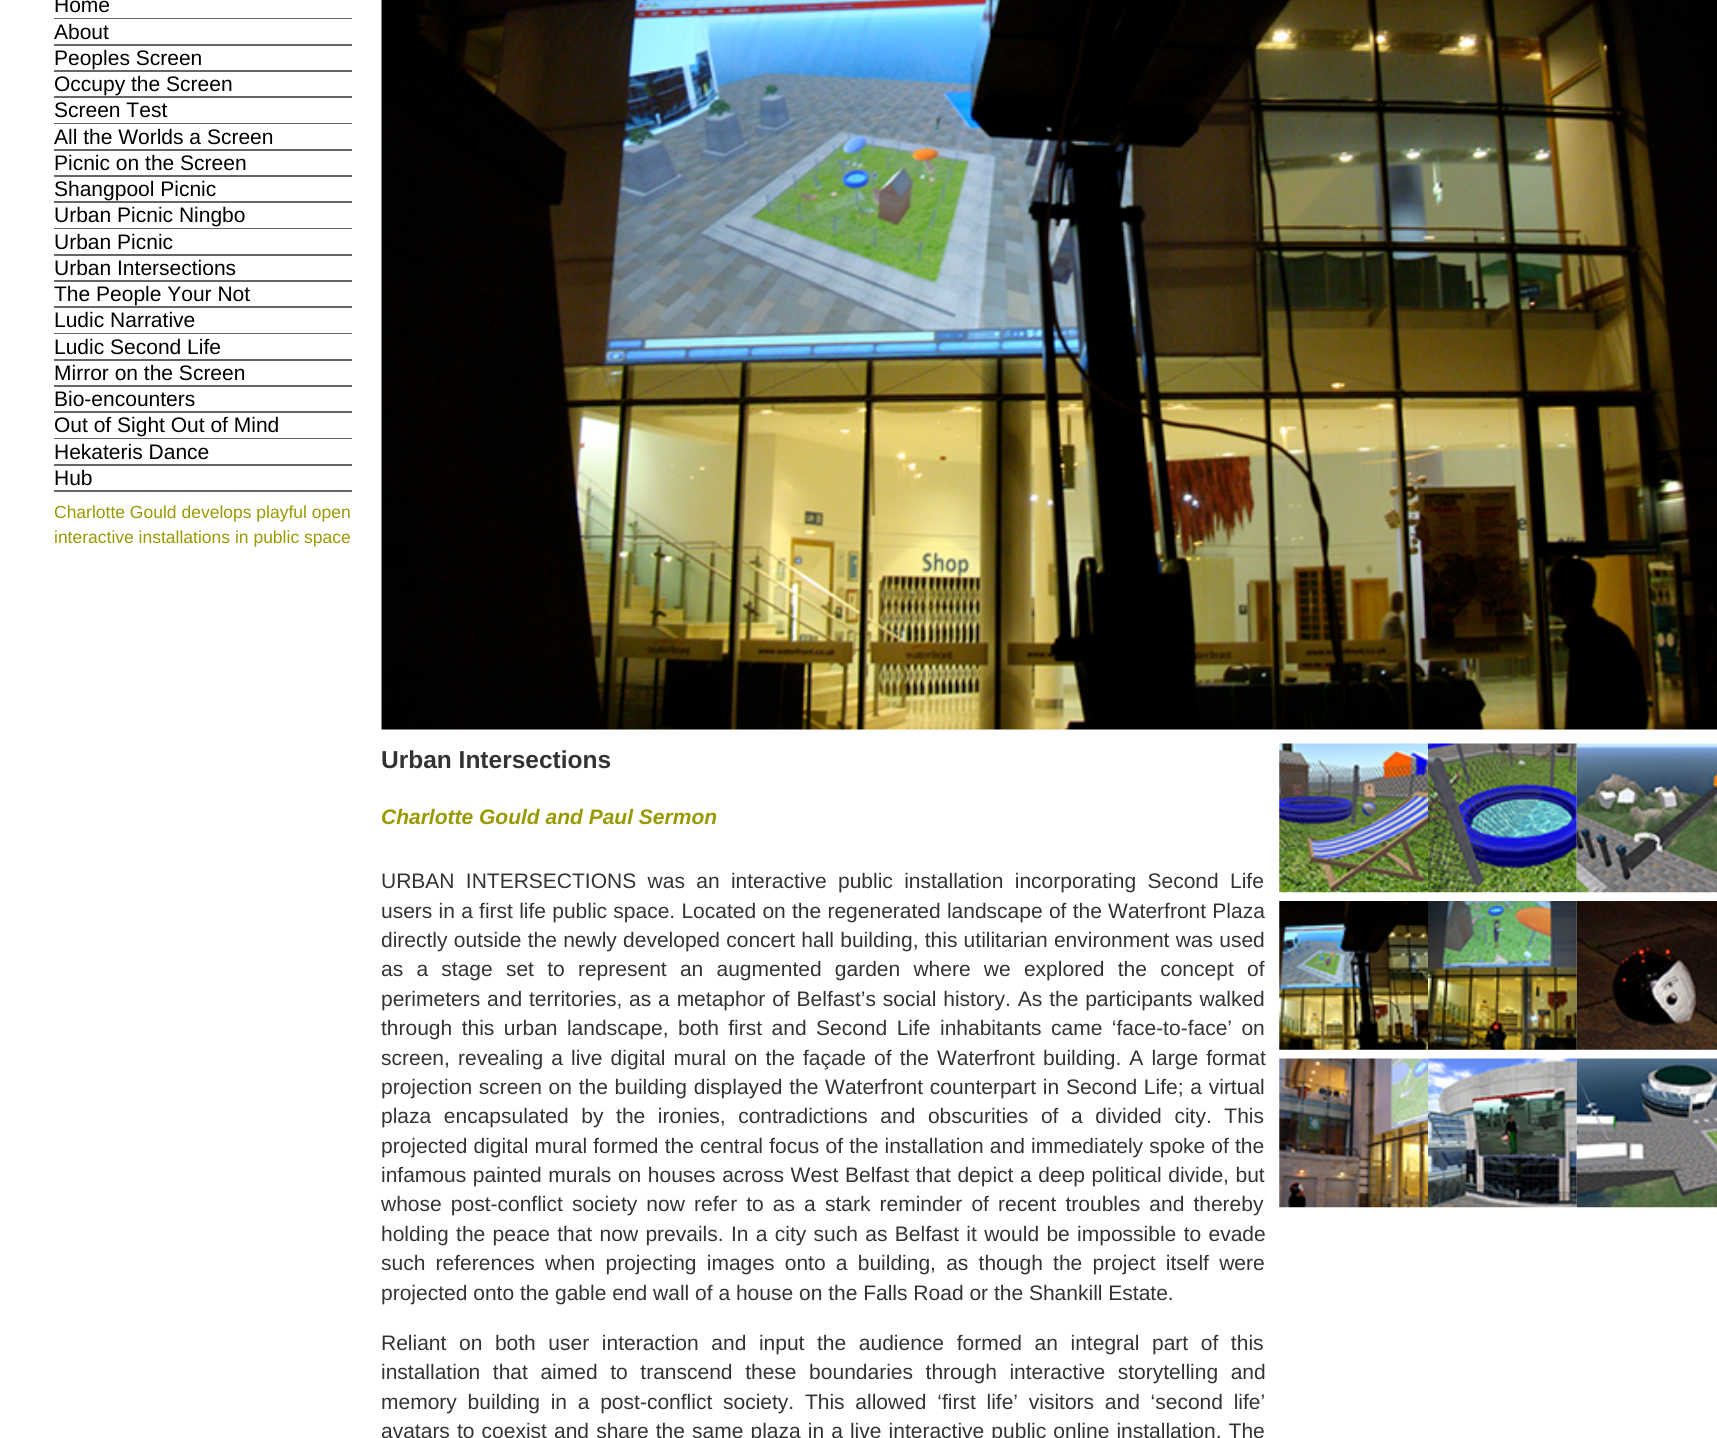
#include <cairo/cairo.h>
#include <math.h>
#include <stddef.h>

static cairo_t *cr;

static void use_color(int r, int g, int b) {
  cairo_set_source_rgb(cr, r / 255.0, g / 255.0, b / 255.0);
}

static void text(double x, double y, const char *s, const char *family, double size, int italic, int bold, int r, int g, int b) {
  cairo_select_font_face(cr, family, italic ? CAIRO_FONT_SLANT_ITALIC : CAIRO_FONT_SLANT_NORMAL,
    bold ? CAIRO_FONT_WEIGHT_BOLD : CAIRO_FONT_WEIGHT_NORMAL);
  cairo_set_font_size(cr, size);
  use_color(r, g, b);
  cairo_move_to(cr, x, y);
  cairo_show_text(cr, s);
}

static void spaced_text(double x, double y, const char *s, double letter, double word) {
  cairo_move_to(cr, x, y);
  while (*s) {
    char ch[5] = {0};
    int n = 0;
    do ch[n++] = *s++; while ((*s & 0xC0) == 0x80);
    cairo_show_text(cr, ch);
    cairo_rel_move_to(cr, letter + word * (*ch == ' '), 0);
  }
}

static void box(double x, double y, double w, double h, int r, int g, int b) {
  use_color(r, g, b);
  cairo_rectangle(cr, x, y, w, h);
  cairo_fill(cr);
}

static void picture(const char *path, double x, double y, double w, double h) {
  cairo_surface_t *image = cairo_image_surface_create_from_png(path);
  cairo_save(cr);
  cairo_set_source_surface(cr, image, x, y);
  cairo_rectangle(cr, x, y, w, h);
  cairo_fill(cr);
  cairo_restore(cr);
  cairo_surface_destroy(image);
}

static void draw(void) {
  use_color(255, 255, 255);
  cairo_paint(cr);
  box(54, 18, 298, 1, 102, 102, 102);
  box(54, 44, 298, 2, 102, 102, 102);
  box(54, 70, 298, 2, 102, 102, 102);
  box(54, 96, 298, 2, 102, 102, 102);
  box(54, 123, 298, 1, 102, 102, 102);
  box(54, 149, 298, 2, 102, 102, 102);
  box(54, 175, 298, 2, 102, 102, 102);
  box(54, 201, 298, 2, 102, 102, 102);
  box(54, 228, 298, 1, 102, 102, 102);
  box(54, 254, 298, 2, 102, 102, 102);
  box(54, 280, 298, 2, 102, 102, 102);
  box(54, 306, 298, 2, 102, 102, 102);
  box(54, 333, 298, 1, 102, 102, 102);
  box(54, 359, 298, 2, 102, 102, 102);
  box(54, 385, 298, 2, 102, 102, 102);
  box(54, 411, 298, 2, 102, 102, 102);
  box(54, 438, 298, 1, 102, 102, 102);
  box(54, 464, 298, 2, 102, 102, 102);
  box(54, 490, 298, 2, 102, 102, 102);
  picture("img_01.png", 381, 0, 1336, 730);
  picture("img_02.png", 1279, 743, 149, 150);
  picture("img_03.png", 1428, 743, 149, 150);
  picture("img_04.png", 1576, 743, 141, 150);
  picture("img_05.png", 1279, 901, 149, 149);
  picture("img_06.png", 1428, 901, 149, 149);
  picture("img_07.png", 1576, 901, 141, 149);
  picture("img_08.png", 1279, 1058, 149, 150);
  picture("img_09.png", 1428, 1058, 149, 150);
  picture("img_10.png", 1576, 1058, 141, 150);
  text(54, 12, "Home", "Liberation Sans", 21, 0, 0, 0, 0, 0);
  text(54, 39, "About", "Liberation Sans", 21, 0, 0, 0, 0, 0);
  text(54, 65, "Peoples Screen", "Liberation Sans", 21, 0, 0, 0, 0, 0);
  text(54, 91, "Occupy the Screen", "Liberation Sans", 21, 0, 0, 0, 0, 0);
  text(54, 117, "Screen Test", "Liberation Sans", 21, 0, 0, 0, 0, 0);
  text(54, 144, "All the Worlds a Screen", "Liberation Sans", 21, 0, 0, 0, 0, 0);
  text(54, 170, "Picnic on the Screen", "Liberation Sans", 21, 0, 0, 0, 0, 0);
  text(54, 196, "Shangpool Picnic", "Liberation Sans", 21, 0, 0, 0, 0, 0);
  text(54, 222, "Urban Picnic Ningbo", "Liberation Sans", 21, 0, 0, 0, 0, 0);
  text(54, 249, "Urban Picnic", "Liberation Sans", 21, 0, 0, 0, 0, 0);
  text(54, 275, "Urban Intersections", "Liberation Sans", 21, 0, 0, 0, 0, 0);
  text(54, 301, "The People Your Not", "Liberation Sans", 21, 0, 0, 0, 0, 0);
  text(54, 327, "Ludic Narrative", "Liberation Sans", 21, 0, 0, 0, 0, 0);
  text(54, 354, "Ludic Second Life", "Liberation Sans", 21, 0, 0, 0, 0, 0);
  text(54, 380, "Mirror on the Screen", "Liberation Sans", 21, 0, 0, 0, 0, 0);
  text(54, 406, "Bio-encounters", "Liberation Sans", 21, 0, 0, 0, 0, 0);
  text(54, 432, "Out of Sight Out of Mind", "Liberation Sans", 21, 0, 0, 0, 0, 0);
  text(54, 459, "Hekateris Dance", "Liberation Sans", 21, 0, 0, 0, 0, 0);
  text(54, 485, "Hub", "Liberation Sans", 21, 0, 0, 0, 0, 0);
  text(54, 518, "Charlotte Gould develops playful open", "Liberation Sans", 17.5, 0, 0, 153, 153, 0);
  text(54, 543, "interactive installations in public space", "Liberation Sans", 17.5, 0, 0, 153, 153, 0);
  text(381, 768, "Urban Intersections", "Liberation Sans", 24.5, 0, 1, 51, 51, 51);
  text(381, 824, "Charlotte Gould and Paul Sermon", "Liberation Sans", 21, 1, 1, 153, 153, 0);
  cairo_select_font_face(cr, "Liberation Sans", CAIRO_FONT_SLANT_NORMAL, CAIRO_FONT_WEIGHT_NORMAL);
  use_color(51, 51, 51);
  spaced_text(381, 888, "URBAN INTERSECTIONS was an interactive public installation incorporating Second Life", 0, 5.5);
  spaced_text(381, 918, "users in a first life public space. Located on the regenerated landscape of the Waterfront Plaza", 0, 0.4);
  spaced_text(381, 947, "directly outside the newly developed concert hall building, this utilitarian environment was used", 0, 0.4);
  spaced_text(381, 976, "as a stage set to represent an augmented garden where we explored the concept of", 0, 7.4);
  spaced_text(381, 1006, "perimeters and territories, as a metaphor of Belfast’s social history. As the participants walked", 0, 1);
  spaced_text(381, 1035, "through this urban landscape, both first and Second Life inhabitants came ‘face-to-face’ on", 0, 3.6);
  spaced_text(381, 1065, "screen, revealing a live digital mural on the façade of the Waterfront building. A large format", 0, 2.25);
  spaced_text(381, 1094, "projection screen on the building displayed the Waterfront counterpart in Second Life; a virtual", 0, 0.9);
  spaced_text(381, 1123, "plaza encapsulated by the ironies, contradictions and obscurities of a divided city. This", 0, 6.75);
  spaced_text(381, 1153, "projected digital mural formed the central focus of the installation and immediately spoke of the", 0, 0.3);
  spaced_text(381, 1182, "infamous painted murals on houses across West Belfast that depict a deep political divide, but", 0, 0.75);
  spaced_text(381, 1211, "whose post-conflict society now refer to as a stark reminder of recent troubles and thereby", 0, 3.25);
  spaced_text(381, 1241, "holding the peace that now prevails. In a city such as Belfast it would be impossible to evade", 0, 1.5);
  spaced_text(381, 1270, "such references when projecting images onto a building, as though the project itself were", 0, 4.4);
  text(381, 1300, "projected onto the gable end wall of a house on the Falls Road or the Shankill Estate.", "Liberation Sans", 21, 0, 0, 51, 51, 51);
  spaced_text(381, 1350, "Reliant on both user interaction and input the audience formed an integral part of this", 0, 6.75);
  spaced_text(381, 1379, "installation that aimed to transcend these boundaries through interactive storytelling and", 0, 6.75);
  spaced_text(381, 1409, "memory building in a post-conflict society. This allowed ‘first life’ visitors and ‘second life’", 0, 4.9);
  spaced_text(381, 1438, "avatars to coexist and share the same plaza in a live interactive public online installation. The", 0, 1.25);
}

int main(void) {
  cairo_surface_t *surface = cairo_image_surface_create(CAIRO_FORMAT_RGB24, 1717, 1438);
  cr = cairo_create(surface);
  cairo_font_options_t *options = cairo_font_options_create();
  cairo_font_options_set_hint_metrics(options, CAIRO_HINT_METRICS_OFF);
  cairo_font_options_set_hint_style(options, CAIRO_HINT_STYLE_NONE);
  cairo_set_font_options(cr, options);
  cairo_set_miter_limit(cr, 4);
  draw();
  cairo_surface_write_to_png(surface, "out.png");
  cairo_font_options_destroy(options);
  cairo_destroy(cr);
  cairo_surface_destroy(surface);
  return 0;
}
